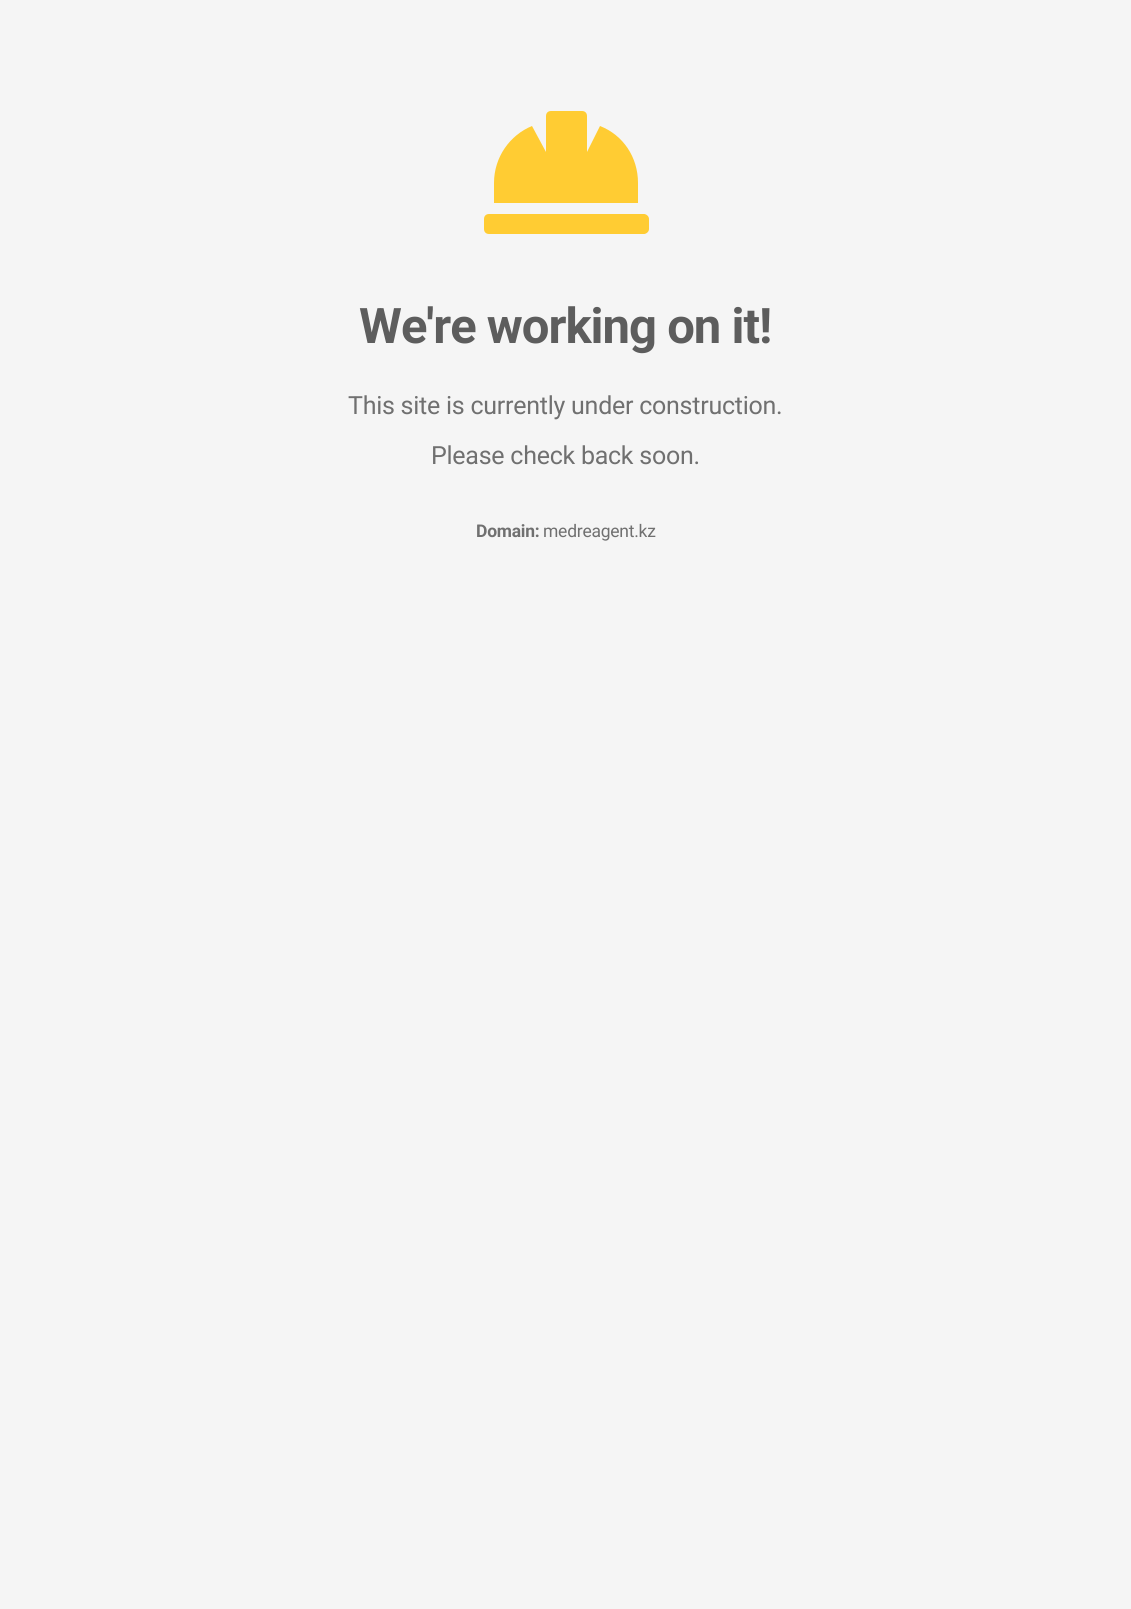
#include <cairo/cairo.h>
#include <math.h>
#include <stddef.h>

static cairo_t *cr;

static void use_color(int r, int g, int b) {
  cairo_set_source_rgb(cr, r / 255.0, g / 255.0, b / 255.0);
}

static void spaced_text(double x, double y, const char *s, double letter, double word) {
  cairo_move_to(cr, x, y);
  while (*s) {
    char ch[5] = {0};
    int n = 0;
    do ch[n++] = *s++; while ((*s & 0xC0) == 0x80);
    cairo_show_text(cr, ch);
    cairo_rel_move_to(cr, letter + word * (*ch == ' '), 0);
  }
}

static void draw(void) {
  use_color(245, 245, 245);
  cairo_paint(cr);
  use_color(255, 204, 51);
  cairo_new_path(cr);
  cairo_move_to(cr, 638, 183);
  cairo_curve_to(cr, 638, 157, 623, 135, 600, 126);
  cairo_line_to(cr, 587, 152);
  cairo_line_to(cr, 587, 116);
  cairo_curve_to(cr, 587, 113, 585, 111, 582, 111);
  cairo_line_to(cr, 551, 111);
  cairo_curve_to(cr, 548, 111, 546, 113, 546, 116);
  cairo_line_to(cr, 546, 152);
  cairo_line_to(cr, 532, 126);
  cairo_curve_to(cr, 510, 135, 494, 157, 494, 183);
  cairo_line_to(cr, 494, 203);
  cairo_line_to(cr, 638, 203);
  cairo_close_path(cr);
  cairo_move_to(cr, 644, 214);
  cairo_line_to(cr, 489, 214);
  cairo_curve_to(cr, 486, 214, 484, 216, 484, 219);
  cairo_line_to(cr, 484, 229);
  cairo_curve_to(cr, 484, 232, 486, 234, 489, 234);
  cairo_line_to(cr, 644, 234);
  cairo_curve_to(cr, 646, 234, 649, 232, 649, 229);
  cairo_line_to(cr, 649, 219);
  cairo_curve_to(cr, 649, 216, 646, 214, 644, 214);
  cairo_close_path(cr);
  cairo_fill(cr);
  cairo_select_font_face(cr, "Roboto", CAIRO_FONT_SLANT_NORMAL, CAIRO_FONT_WEIGHT_BOLD);
  cairo_set_font_size(cr, 49);
  use_color(93, 93, 93);
  spaced_text(359, 343, "We're working on it!", -1, 0);
  cairo_select_font_face(cr, "Roboto", CAIRO_FONT_SLANT_NORMAL, CAIRO_FONT_WEIGHT_NORMAL);
  cairo_set_font_size(cr, 25);
  use_color(112, 112, 112);
  spaced_text(348, 414, "This site is currently under construction.", -0.25, 0);
  spaced_text(431, 464, "Please check back soon.", -0.25, 0);
  cairo_select_font_face(cr, "Roboto", CAIRO_FONT_SLANT_NORMAL, CAIRO_FONT_WEIGHT_BOLD);
  cairo_set_font_size(cr, 17.5);
  spaced_text(476, 537, "Domain:", -0.25, 0);
  cairo_select_font_face(cr, "Roboto", CAIRO_FONT_SLANT_NORMAL, CAIRO_FONT_WEIGHT_NORMAL);
  spaced_text(543, 537, "medreagent.kz", -0.25, 0);
}

int main(void) {
  cairo_surface_t *surface = cairo_image_surface_create(CAIRO_FORMAT_RGB24, 1131, 1609);
  cr = cairo_create(surface);
  cairo_font_options_t *options = cairo_font_options_create();
  cairo_font_options_set_hint_metrics(options, CAIRO_HINT_METRICS_OFF);
  cairo_font_options_set_hint_style(options, CAIRO_HINT_STYLE_NONE);
  cairo_set_font_options(cr, options);
  cairo_set_miter_limit(cr, 4);
  draw();
  cairo_surface_write_to_png(surface, "out.png");
  cairo_font_options_destroy(options);
  cairo_destroy(cr);
  cairo_surface_destroy(surface);
  return 0;
}
